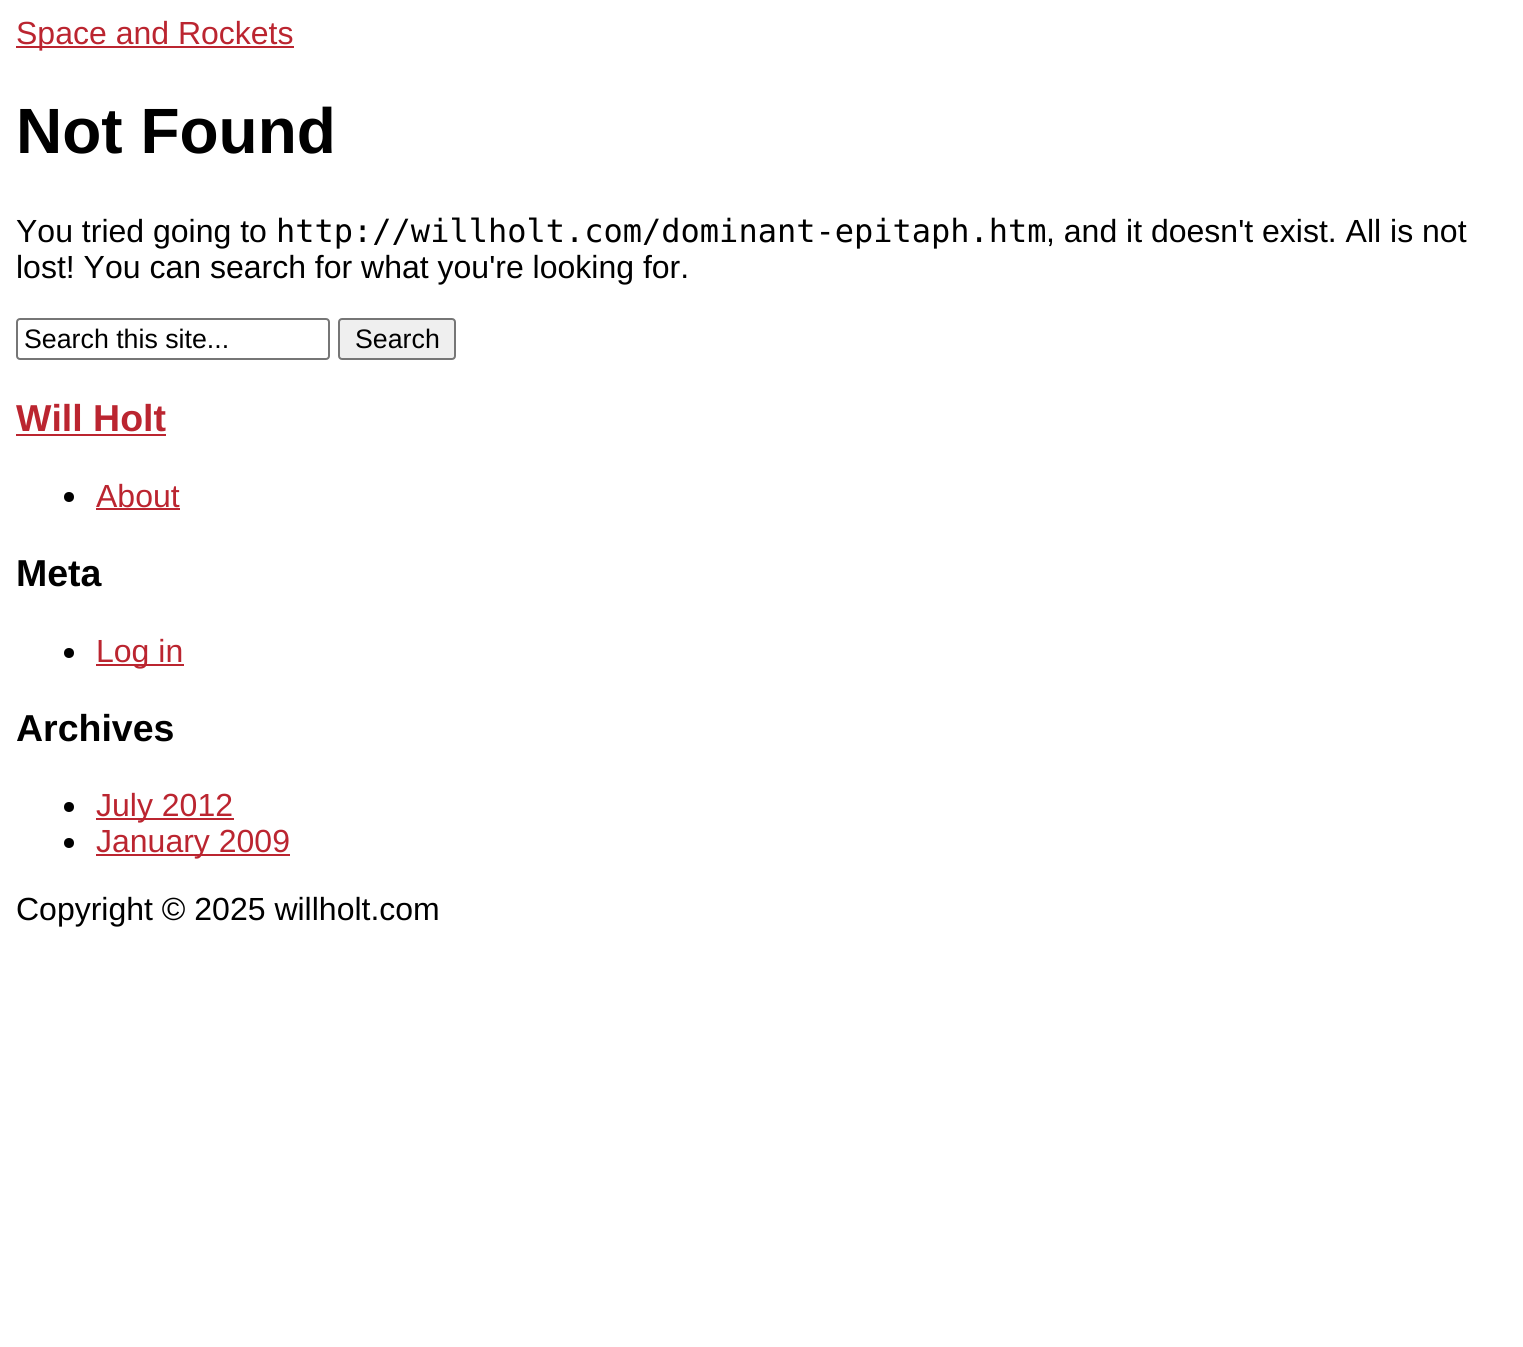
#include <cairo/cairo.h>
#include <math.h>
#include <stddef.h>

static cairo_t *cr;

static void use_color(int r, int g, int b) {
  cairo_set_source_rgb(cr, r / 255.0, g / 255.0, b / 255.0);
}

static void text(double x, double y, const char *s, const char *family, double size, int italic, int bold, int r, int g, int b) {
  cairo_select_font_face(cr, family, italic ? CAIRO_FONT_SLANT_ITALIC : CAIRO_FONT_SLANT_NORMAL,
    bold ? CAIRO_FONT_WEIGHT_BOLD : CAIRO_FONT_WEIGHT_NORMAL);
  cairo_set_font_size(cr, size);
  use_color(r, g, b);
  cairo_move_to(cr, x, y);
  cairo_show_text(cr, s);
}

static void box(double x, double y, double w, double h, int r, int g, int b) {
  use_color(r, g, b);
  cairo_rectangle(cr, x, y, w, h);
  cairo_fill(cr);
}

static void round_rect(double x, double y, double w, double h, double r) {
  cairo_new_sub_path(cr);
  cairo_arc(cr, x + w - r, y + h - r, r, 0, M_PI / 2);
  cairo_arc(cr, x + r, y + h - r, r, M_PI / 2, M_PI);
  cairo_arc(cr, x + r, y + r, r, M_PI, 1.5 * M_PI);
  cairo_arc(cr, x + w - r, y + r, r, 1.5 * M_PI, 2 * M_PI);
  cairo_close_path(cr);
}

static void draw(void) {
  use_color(255, 255, 255);
  cairo_paint(cr);
  box(16, 46, 278, 2, 187, 37, 48);
  round_rect(17, 319, 312, 40, 3);
  use_color(118, 118, 118);
  cairo_stroke(cr);
  use_color(239, 239, 239);
  round_rect(339, 319, 116, 40, 3);
  cairo_fill_preserve(cr);
  use_color(118, 118, 118);
  cairo_stroke(cr);
  box(16, 434, 150, 2, 187, 37, 48);
  use_color(0, 0, 0);
  cairo_arc(cr, 69, 497, 5, 0, 2 * M_PI);
  cairo_fill(cr);
  box(96, 508, 84, 2, 187, 37, 48);
  use_color(0, 0, 0);
  cairo_arc(cr, 69, 653, 5, 0, 2 * M_PI);
  cairo_fill(cr);
  box(96, 664, 88, 2, 187, 37, 48);
  use_color(0, 0, 0);
  cairo_arc(cr, 69, 807, 5, 0, 2 * M_PI);
  cairo_fill(cr);
  box(96, 818, 138, 2, 187, 37, 48);
  use_color(0, 0, 0);
  cairo_arc(cr, 69, 843, 5, 0, 2 * M_PI);
  cairo_fill(cr);
  box(96, 854, 194, 2, 187, 37, 48);
  text(16, 44, "Space and Rockets", "Liberation Sans", 32, 0, 0, 187, 37, 48);
  text(16, 153, "Not Found", "Liberation Sans", 64, 0, 1, 0, 0, 0);
  text(16, 242, "You tried going to", "Liberation Sans", 32, 0, 0, 0, 0, 0);
  text(276, 242, "http://willholt.com/dominant-epitaph.htm", "DejaVu Sans Mono", 32, 0, 0, 0, 0, 0);
  text(1046, 242, ", and it doesn't exist. All is not", "Liberation Sans", 32, 0, 0, 0, 0, 0);
  text(16, 278, "lost! You can search for what you're looking for.", "Liberation Sans", 32, 0, 0, 0, 0, 0);
  text(24, 348, "Search this site...", "Liberation Sans", 26.75, 0, 0, 0, 0, 0);
  text(355, 348, "Search", "Liberation Sans", 26.75, 0, 0, 0, 0, 0);
  text(16, 431, "Will Holt", "Liberation Sans", 37.5, 0, 1, 187, 37, 48);
  text(96, 507, "About", "Liberation Sans", 32, 0, 0, 187, 37, 48);
  text(16, 586, "Meta", "Liberation Sans", 37.5, 0, 1, 0, 0, 0);
  text(96, 662, "Log in", "Liberation Sans", 32, 0, 0, 187, 37, 48);
  text(16, 741, "Archives", "Liberation Sans", 37.5, 0, 1, 0, 0, 0);
  text(96, 816, "July 2012", "Liberation Sans", 32, 0, 0, 187, 37, 48);
  text(96, 852, "January 2009", "Liberation Sans", 32, 0, 0, 187, 37, 48);
  text(16, 920, "Copyright © 2025 willholt.com", "Liberation Sans", 32, 0, 0, 0, 0, 0);
}

int main(void) {
  cairo_surface_t *surface = cairo_image_surface_create(CAIRO_FORMAT_RGB24, 1523, 1347);
  cr = cairo_create(surface);
  cairo_font_options_t *options = cairo_font_options_create();
  cairo_font_options_set_hint_metrics(options, CAIRO_HINT_METRICS_OFF);
  cairo_font_options_set_hint_style(options, CAIRO_HINT_STYLE_NONE);
  cairo_set_font_options(cr, options);
  cairo_set_miter_limit(cr, 4);
  draw();
  cairo_surface_write_to_png(surface, "out.png");
  cairo_font_options_destroy(options);
  cairo_destroy(cr);
  cairo_surface_destroy(surface);
  return 0;
}
